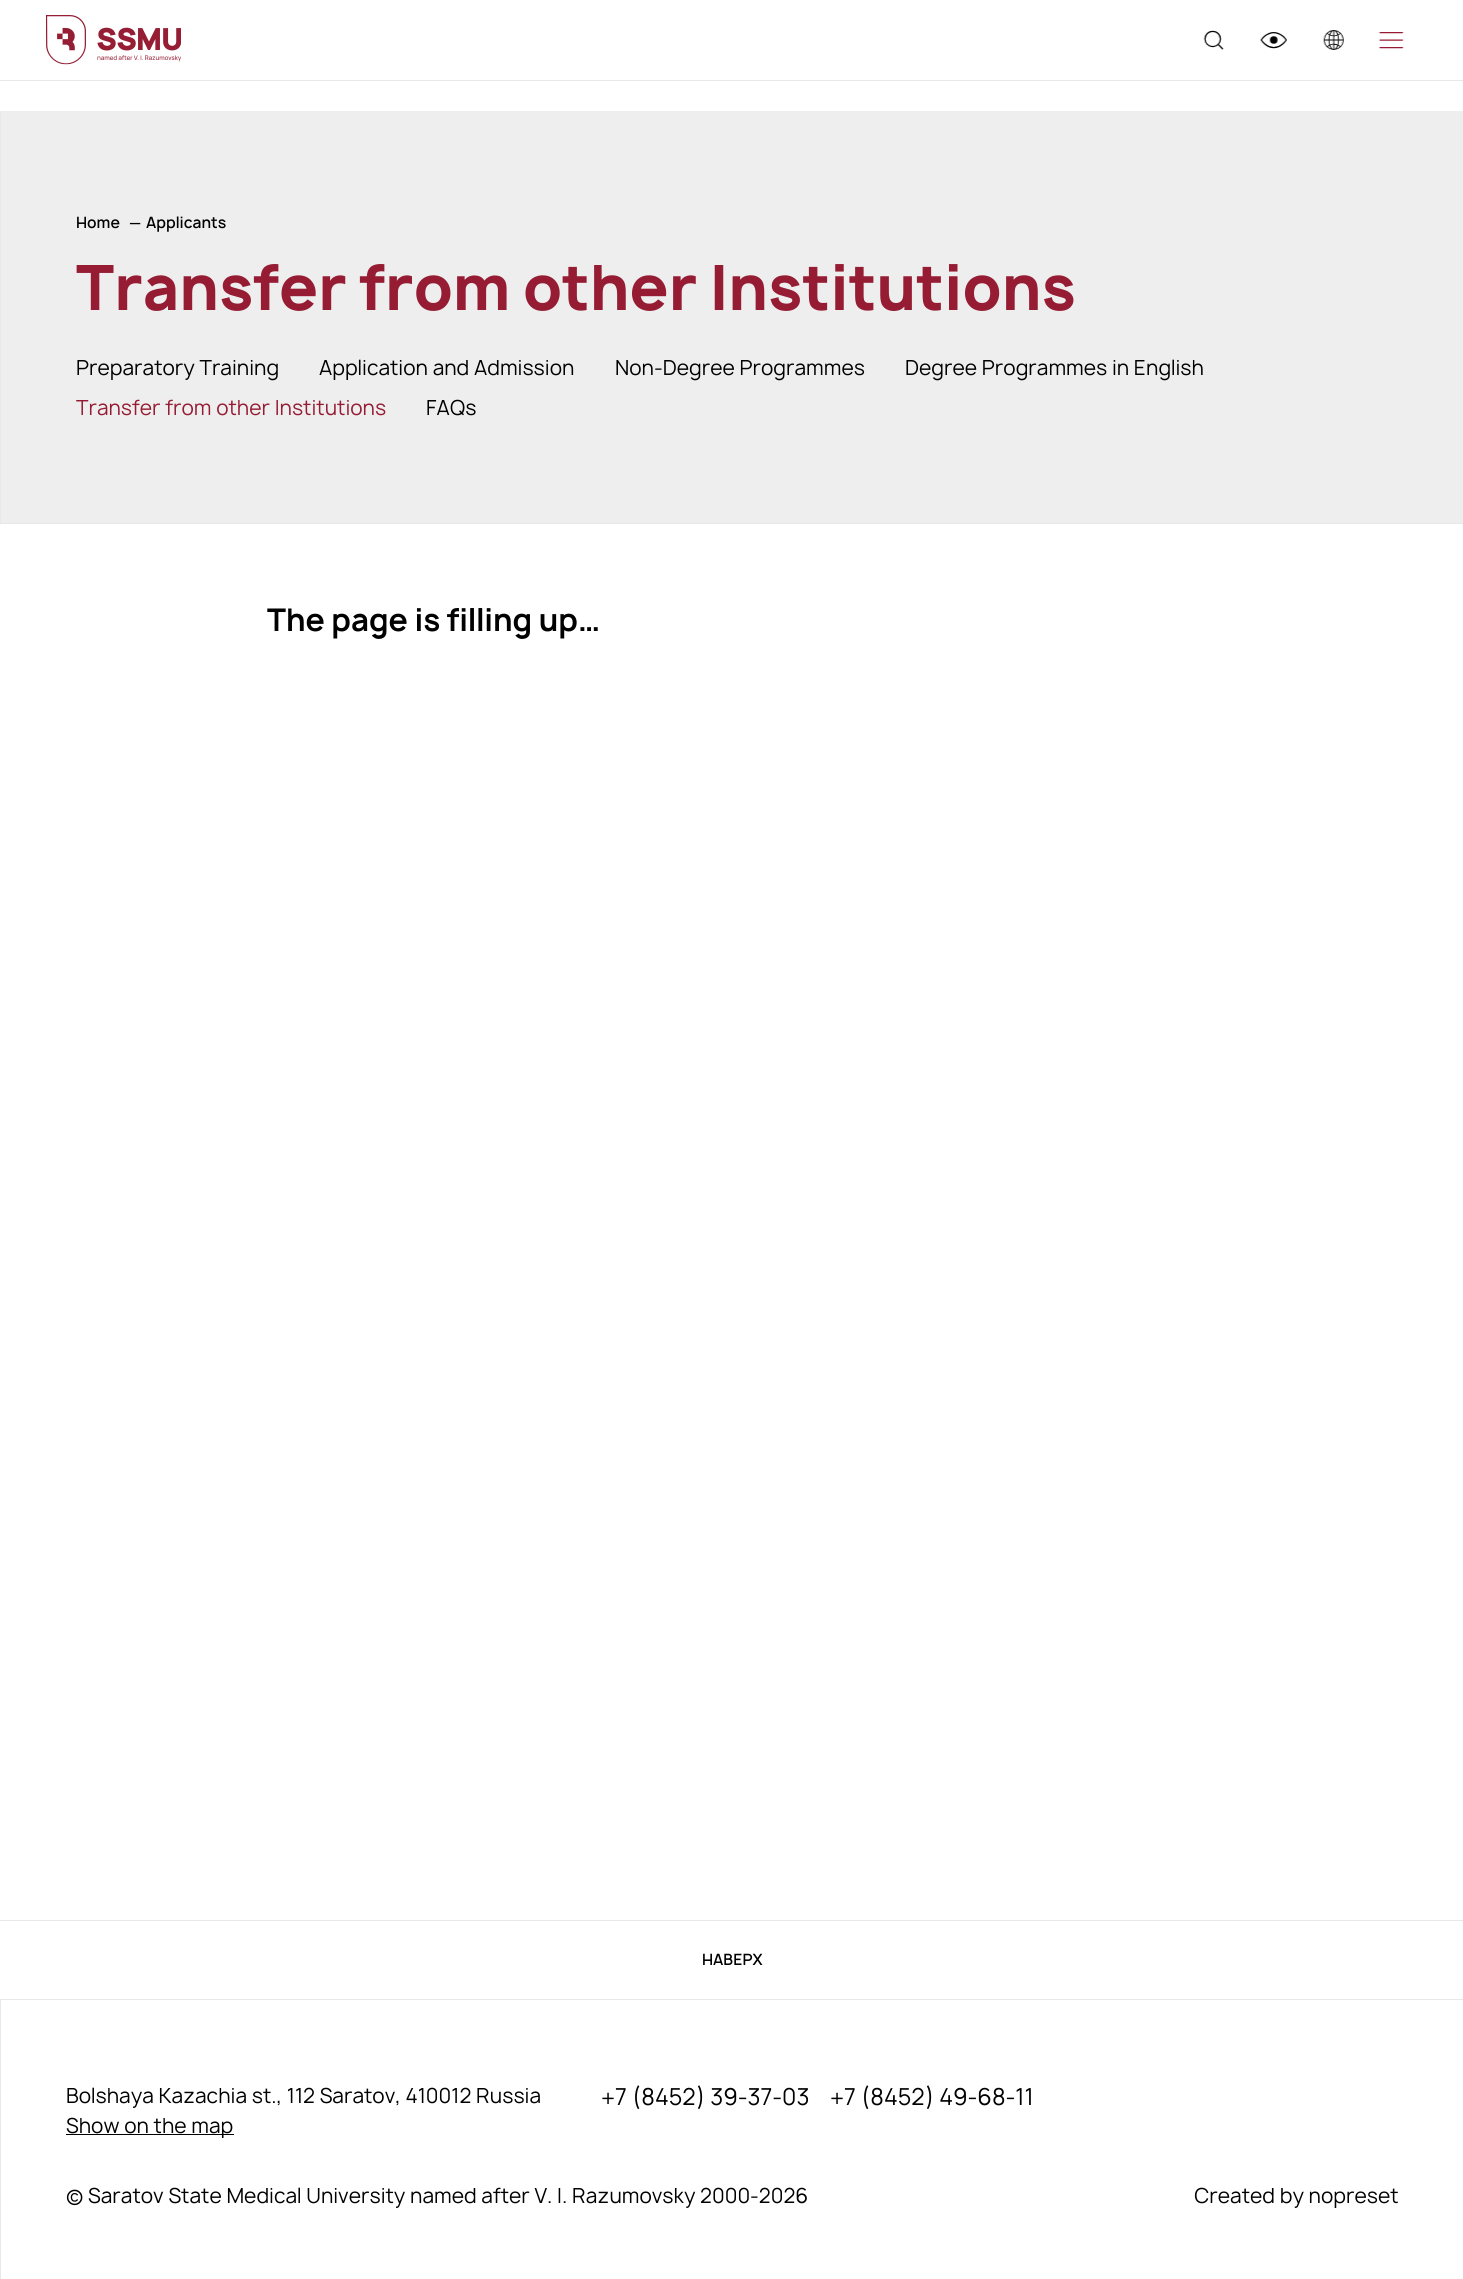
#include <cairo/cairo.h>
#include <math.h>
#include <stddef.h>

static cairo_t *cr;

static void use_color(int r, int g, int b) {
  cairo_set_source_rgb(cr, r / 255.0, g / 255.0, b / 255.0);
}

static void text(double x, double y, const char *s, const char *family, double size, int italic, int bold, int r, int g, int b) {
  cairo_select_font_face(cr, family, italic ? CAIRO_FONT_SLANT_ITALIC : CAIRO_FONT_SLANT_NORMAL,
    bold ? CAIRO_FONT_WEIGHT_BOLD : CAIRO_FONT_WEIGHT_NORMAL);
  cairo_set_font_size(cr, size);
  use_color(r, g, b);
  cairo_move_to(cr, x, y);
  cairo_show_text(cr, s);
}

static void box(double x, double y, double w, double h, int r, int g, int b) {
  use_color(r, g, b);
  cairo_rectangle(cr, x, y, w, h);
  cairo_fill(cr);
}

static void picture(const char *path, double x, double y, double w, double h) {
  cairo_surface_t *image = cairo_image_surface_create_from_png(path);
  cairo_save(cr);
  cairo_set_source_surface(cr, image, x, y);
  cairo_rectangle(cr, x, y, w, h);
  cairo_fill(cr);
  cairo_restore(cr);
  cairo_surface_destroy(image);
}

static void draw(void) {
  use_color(255, 255, 255);
  cairo_paint(cr);
  box(0, 80, 1463, 1, 232, 232, 232);
  picture("img_01.png", 46, 15, 135, 50);
  picture("img_02.png", 1203, 30, 21, 20);
  picture("img_03.png", 1260, 32, 27, 17);
  picture("img_04.png", 1323, 30, 21, 20);
  picture("img_05.png", 1378, 32, 26, 17);
  box(1, 111, 1462, 412, 238, 238, 238);
  box(0, 523, 1463, 1, 232, 232, 232);
  box(0, 111, 1, 413, 232, 232, 232);
  box(0, 1920, 1463, 1, 232, 232, 232);
  box(0, 1999, 1463, 1, 232, 232, 232);
  box(0, 1999, 1, 280, 232, 232, 232);
  box(66, 2134, 168, 1, 0, 0, 0);
  text(76, 228, "Home", "Manrope SemiBold", 15, 0, 0, 0, 0, 0);
  text(129, 228, "—", "Manrope SemiBold", 15, 0, 0, 0, 0, 0);
  text(146, 228, "Applicants", "Manrope SemiBold", 15, 0, 0, 0, 0, 0);
  text(76, 310, "Transfer from other Institutions", "Manrope ExtraBold", 60, 0, 0, 149, 28, 51);
  text(76, 375, "Preparatory Training", "Manrope", 20, 0, 0, 0, 0, 0);
  text(319, 375, "Application and Admission", "Manrope", 20, 0, 0, 0, 0, 0);
  text(615, 375, "Non-Degree Programmes", "Manrope", 20, 0, 0, 0, 0, 0);
  text(905, 375, "Degree Programmes in English", "Manrope", 20, 0, 0, 0, 0, 0);
  text(76, 415, "Transfer from other Institutions", "Manrope", 20, 0, 0, 149, 28, 51);
  text(426, 415, "FAQs", "Manrope", 20, 0, 0, 0, 0, 0);
  text(267, 631, "The page is filling up…", "Manrope", 30, 0, 1, 0, 0, 0);
  text(702, 1965, "НАВЕРХ", "Manrope SemiBold", 15, 0, 0, 0, 0, 0);
  text(66, 2103, "Bolshaya Kazachia st., 112 Saratov, 410012 Russia", "Manrope", 20, 0, 0, 0, 0, 0);
  text(66, 2133, "Show on the map", "Manrope", 20, 0, 0, 0, 0, 0);
  text(601, 2105, "+7 (8452) 39-37-03", "Manrope", 22.5, 0, 0, 0, 0, 0);
  text(830, 2105, "+7 (8452) 49-68-11", "Manrope", 22.5, 0, 0, 0, 0, 0);
  text(66, 2203, "© Saratov State Medical University named after V. I. Razumovsky 2000‑2026", "Manrope", 20, 0, 0, 0, 0, 0);
  text(1194, 2203, "Created by nopreset", "Manrope", 20, 0, 0, 0, 0, 0);
}

int main(void) {
  cairo_surface_t *surface = cairo_image_surface_create(CAIRO_FORMAT_RGB24, 1463, 2279);
  cr = cairo_create(surface);
  cairo_font_options_t *options = cairo_font_options_create();
  cairo_font_options_set_hint_metrics(options, CAIRO_HINT_METRICS_OFF);
  cairo_font_options_set_hint_style(options, CAIRO_HINT_STYLE_NONE);
  cairo_set_font_options(cr, options);
  cairo_set_miter_limit(cr, 4);
  draw();
  cairo_surface_write_to_png(surface, "out.png");
  cairo_font_options_destroy(options);
  cairo_destroy(cr);
  cairo_surface_destroy(surface);
  return 0;
}
